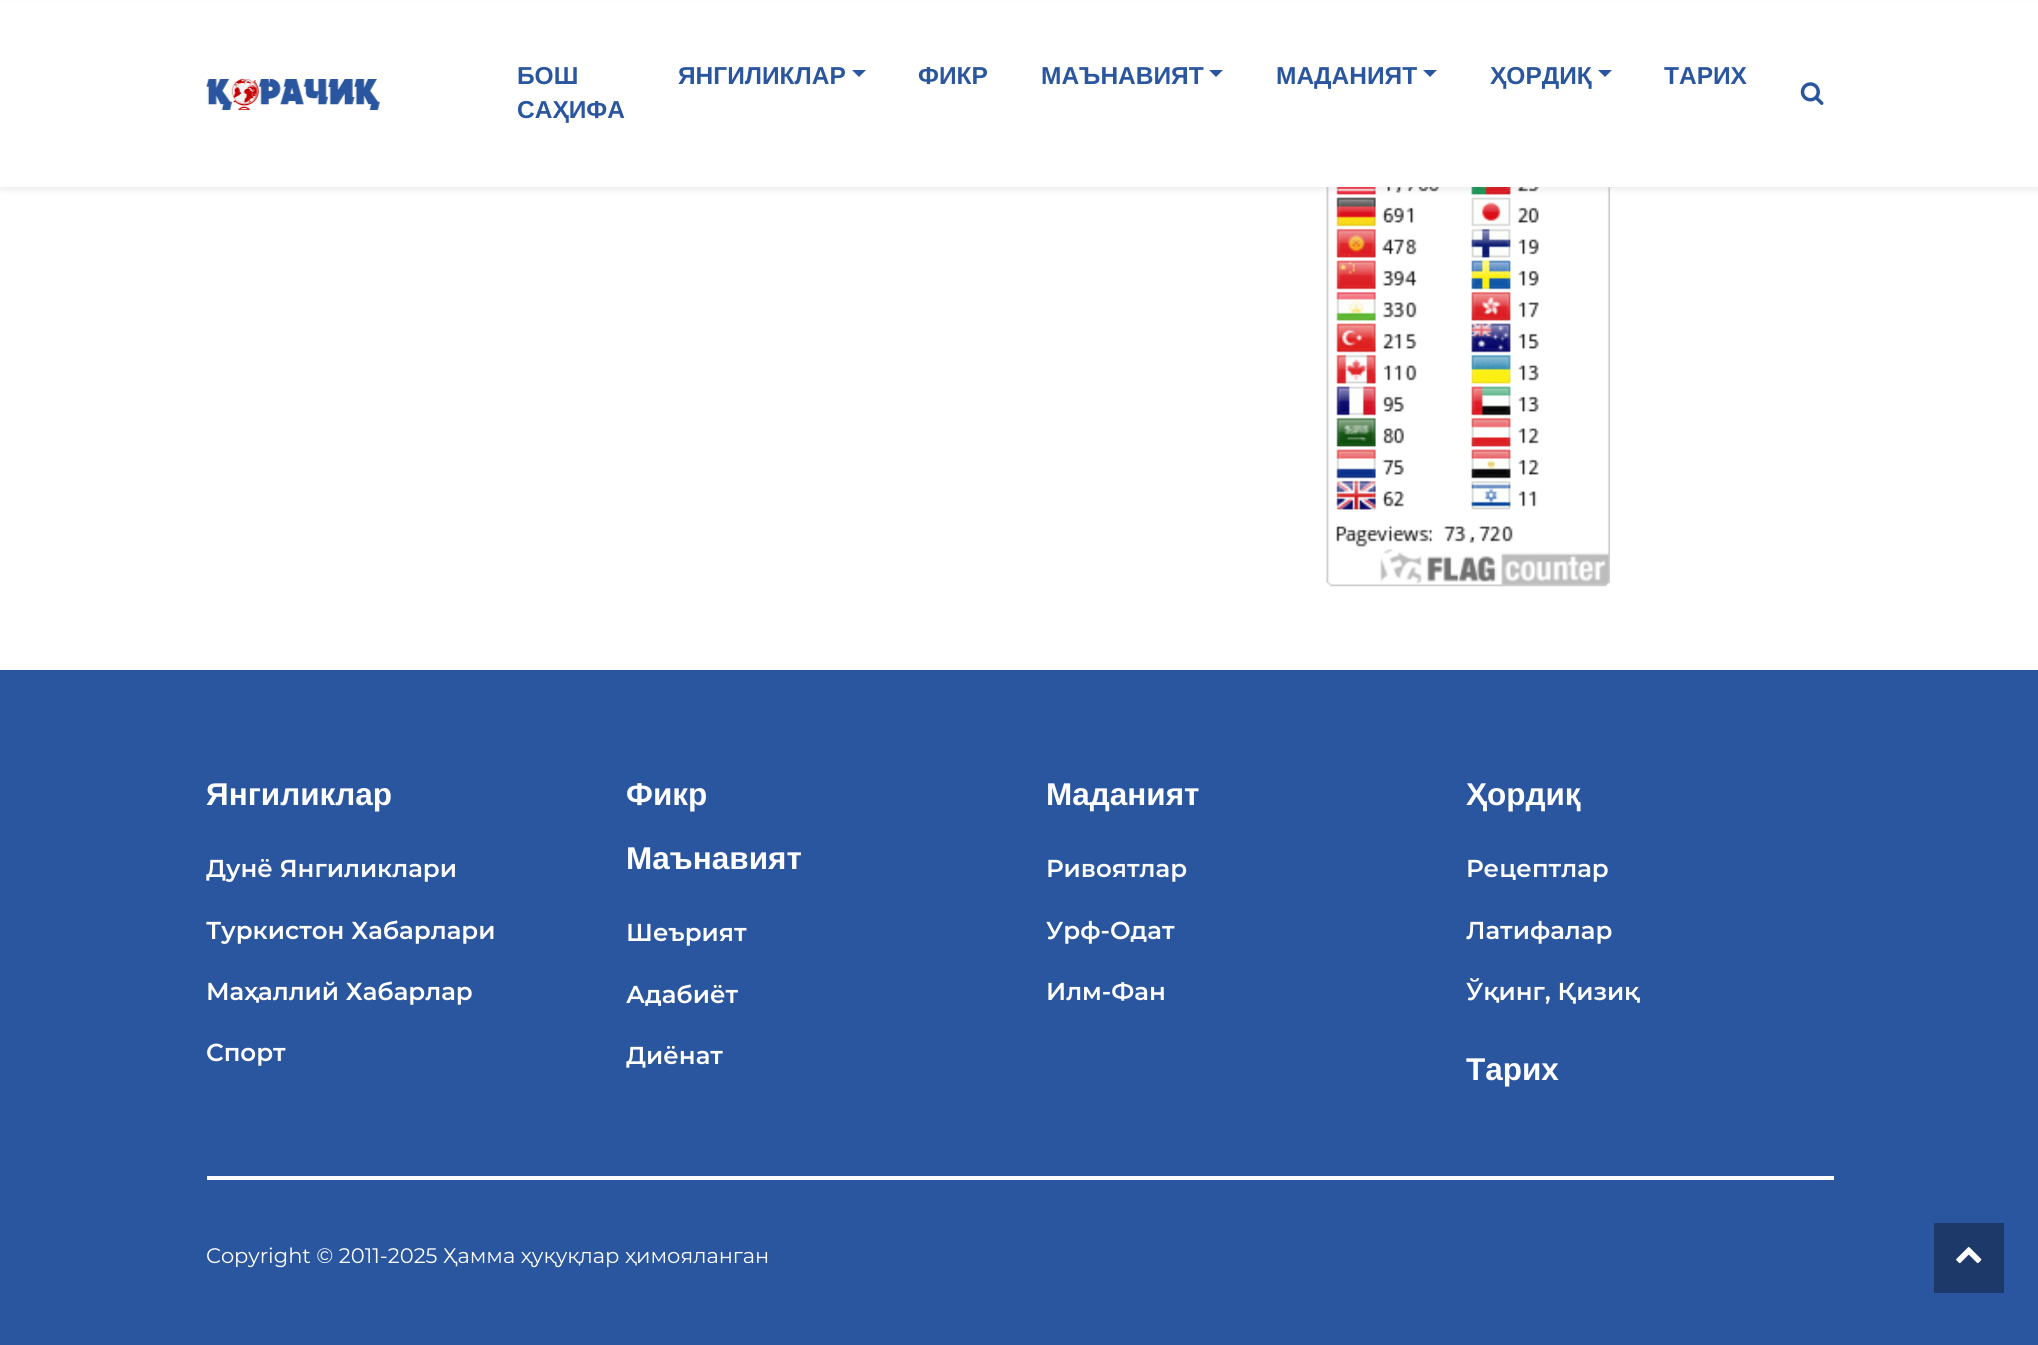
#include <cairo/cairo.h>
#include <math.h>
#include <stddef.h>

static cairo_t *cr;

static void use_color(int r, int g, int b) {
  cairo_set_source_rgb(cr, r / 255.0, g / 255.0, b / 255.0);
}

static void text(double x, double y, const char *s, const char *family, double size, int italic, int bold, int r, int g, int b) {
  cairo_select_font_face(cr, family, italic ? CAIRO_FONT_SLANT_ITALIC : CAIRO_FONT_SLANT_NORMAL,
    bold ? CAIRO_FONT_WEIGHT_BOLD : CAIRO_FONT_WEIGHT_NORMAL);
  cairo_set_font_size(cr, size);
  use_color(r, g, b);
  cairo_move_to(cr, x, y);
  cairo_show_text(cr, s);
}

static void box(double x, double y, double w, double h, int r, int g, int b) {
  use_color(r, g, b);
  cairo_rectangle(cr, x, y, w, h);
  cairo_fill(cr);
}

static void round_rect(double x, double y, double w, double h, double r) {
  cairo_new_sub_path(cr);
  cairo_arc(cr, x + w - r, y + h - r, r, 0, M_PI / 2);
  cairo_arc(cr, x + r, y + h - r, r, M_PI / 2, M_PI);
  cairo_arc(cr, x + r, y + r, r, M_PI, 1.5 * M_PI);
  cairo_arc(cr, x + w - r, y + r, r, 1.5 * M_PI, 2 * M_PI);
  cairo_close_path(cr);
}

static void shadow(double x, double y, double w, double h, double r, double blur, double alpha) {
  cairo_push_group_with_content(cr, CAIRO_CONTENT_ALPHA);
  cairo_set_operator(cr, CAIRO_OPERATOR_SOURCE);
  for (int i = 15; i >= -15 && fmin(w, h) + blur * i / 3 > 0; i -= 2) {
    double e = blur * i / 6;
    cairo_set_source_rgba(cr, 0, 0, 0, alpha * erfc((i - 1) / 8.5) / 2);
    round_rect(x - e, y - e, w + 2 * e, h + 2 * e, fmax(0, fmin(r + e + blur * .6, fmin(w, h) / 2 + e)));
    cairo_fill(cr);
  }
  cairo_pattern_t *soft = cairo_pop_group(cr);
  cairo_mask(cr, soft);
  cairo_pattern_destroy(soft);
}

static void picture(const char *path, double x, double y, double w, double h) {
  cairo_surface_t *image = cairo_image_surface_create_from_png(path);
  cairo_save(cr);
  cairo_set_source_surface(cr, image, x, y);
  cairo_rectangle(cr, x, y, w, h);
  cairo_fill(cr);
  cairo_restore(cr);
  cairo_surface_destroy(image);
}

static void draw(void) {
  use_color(255, 255, 255);
  cairo_paint(cr);
  picture("img_03.png", 1326, 187, 284, 400);
  use_color(100, 100, 100);
  shadow(0, 4, 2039, 187, 0, 2.5, 0.1);
  box(0, 2, 2038, 185, 255, 255, 255);
  picture("img_01.png", 206, 79, 174, 31);
  use_color(42, 86, 159);
  cairo_new_path(cr);
  cairo_move_to(cr, 852, 70);
  cairo_line_to(cr, 866, 70);
  cairo_line_to(cr, 859, 77);
  cairo_close_path(cr);
  cairo_fill(cr);
  cairo_new_path(cr);
  cairo_move_to(cr, 1209, 70);
  cairo_line_to(cr, 1223, 70);
  cairo_line_to(cr, 1216, 77);
  cairo_close_path(cr);
  cairo_fill(cr);
  cairo_new_path(cr);
  cairo_move_to(cr, 1423, 70);
  cairo_line_to(cr, 1437, 70);
  cairo_line_to(cr, 1430, 77);
  cairo_close_path(cr);
  cairo_fill(cr);
  cairo_new_path(cr);
  cairo_move_to(cr, 1598, 70);
  cairo_line_to(cr, 1612, 70);
  cairo_line_to(cr, 1605, 77);
  cairo_close_path(cr);
  cairo_fill(cr);
  picture("img_02.png", 1800, 82, 24, 23);
  box(0, 670, 2038, 675, 42, 86, 159);
  box(207, 1176, 1627, 4, 255, 255, 255);
  box(1934, 1223, 70, 70, 28, 57, 105);
  picture("img_04.png", 1956, 1247, 26, 17);
  text(517, 84, "БОШ", "Liberation Sans", 24.5, 0, 1, 42, 86, 159);
  text(517, 118, "САҲИФА", "Liberation Sans", 24.5, 0, 1, 42, 86, 159);
  text(678, 84, "ЯНГИЛИКЛАР", "Liberation Sans", 24.5, 0, 1, 42, 86, 159);
  text(918, 84, "ФИКР", "Liberation Sans", 24.5, 0, 1, 42, 86, 159);
  text(1041, 84, "МАЪНАВИЯТ", "Liberation Sans", 24.5, 0, 1, 42, 86, 159);
  text(1276, 84, "МАДАНИЯТ", "Liberation Sans", 24.5, 0, 1, 42, 86, 159);
  text(1490, 84, "ҲОРДИҚ", "Liberation Sans", 24.5, 0, 1, 42, 86, 159);
  text(1664, 84, "ТАРИХ", "Liberation Sans", 24.5, 0, 1, 42, 86, 159);
  text(206, 805, "Янгиликлар", "Liberation Sans", 31.5, 0, 1, 255, 255, 255);
  text(206, 877, "Дунё Янгиликлари", "Montserrat SemiBold", 24.5, 0, 0, 255, 255, 255);
  text(206, 939, "Туркистон Хабарлари", "Montserrat SemiBold", 24.5, 0, 0, 255, 255, 255);
  text(206, 1000, "Маҳаллий Хабарлар", "Montserrat SemiBold", 24.5, 0, 0, 255, 255, 255);
  text(206, 1061, "Спорт", "Montserrat SemiBold", 24.5, 0, 0, 255, 255, 255);
  text(626, 805, "Фикр", "Liberation Sans", 31.5, 0, 1, 255, 255, 255);
  text(626, 869, "Маънавият", "Liberation Sans", 31.5, 0, 1, 255, 255, 255);
  text(626, 941, "Шеърият", "Montserrat SemiBold", 24.5, 0, 0, 255, 255, 255);
  text(626, 1003, "Адабиёт", "Montserrat SemiBold", 24.5, 0, 0, 255, 255, 255);
  text(626, 1064, "Диёнат", "Montserrat SemiBold", 24.5, 0, 0, 255, 255, 255);
  text(1046, 805, "Маданият", "Liberation Sans", 31.5, 0, 1, 255, 255, 255);
  text(1046, 877, "Ривоятлар", "Montserrat SemiBold", 24.5, 0, 0, 255, 255, 255);
  text(1046, 939, "Урф-Одат", "Montserrat SemiBold", 24.5, 0, 0, 255, 255, 255);
  text(1046, 1000, "Илм-Фан", "Montserrat SemiBold", 24.5, 0, 0, 255, 255, 255);
  text(1466, 805, "Ҳордиқ", "Liberation Sans", 31.5, 0, 1, 255, 255, 255);
  text(1466, 877, "Рецептлар", "Montserrat SemiBold", 24.5, 0, 0, 255, 255, 255);
  text(1466, 939, "Латифалар", "Montserrat SemiBold", 24.5, 0, 0, 255, 255, 255);
  text(1466, 1000, "Ўқинг, Қизиқ", "Montserrat SemiBold", 24.5, 0, 0, 255, 255, 255);
  text(1466, 1080, "Тарих", "Liberation Sans", 31.5, 0, 1, 255, 255, 255);
  text(206, 1263, "Copyright © 2011-2025 Ҳамма ҳуқуқлар ҳимояланган", "Montserrat", 21, 0, 0, 255, 255, 255);
}

int main(void) {
  cairo_surface_t *surface = cairo_image_surface_create(CAIRO_FORMAT_RGB24, 2038, 1345);
  cr = cairo_create(surface);
  cairo_font_options_t *options = cairo_font_options_create();
  cairo_font_options_set_hint_metrics(options, CAIRO_HINT_METRICS_OFF);
  cairo_font_options_set_hint_style(options, CAIRO_HINT_STYLE_NONE);
  cairo_set_font_options(cr, options);
  cairo_set_miter_limit(cr, 4);
  draw();
  cairo_surface_write_to_png(surface, "out.png");
  cairo_font_options_destroy(options);
  cairo_destroy(cr);
  cairo_surface_destroy(surface);
  return 0;
}
